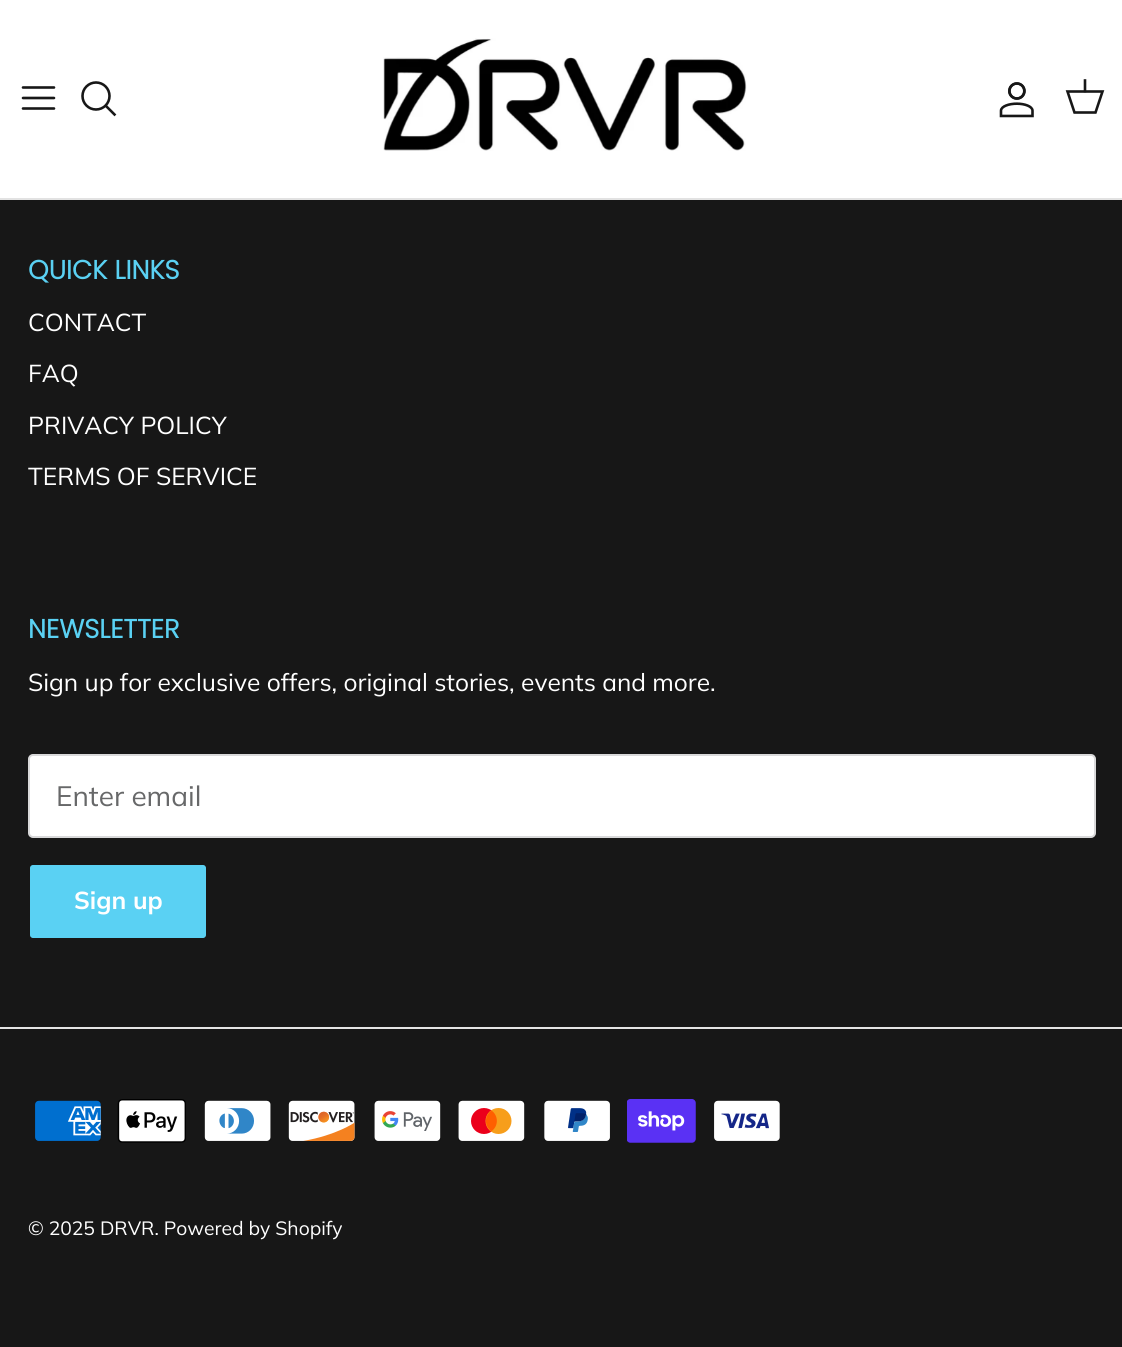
#include <cairo/cairo.h>
#include <math.h>
#include <stddef.h>

static cairo_t *cr;

static void use_color(int r, int g, int b) {
  cairo_set_source_rgb(cr, r / 255.0, g / 255.0, b / 255.0);
}

static void text(double x, double y, const char *s, const char *family, double size, int italic, int bold, int r, int g, int b) {
  cairo_select_font_face(cr, family, italic ? CAIRO_FONT_SLANT_ITALIC : CAIRO_FONT_SLANT_NORMAL,
    bold ? CAIRO_FONT_WEIGHT_BOLD : CAIRO_FONT_WEIGHT_NORMAL);
  cairo_set_font_size(cr, size);
  use_color(r, g, b);
  cairo_move_to(cr, x, y);
  cairo_show_text(cr, s);
}

static void box(double x, double y, double w, double h, int r, int g, int b) {
  use_color(r, g, b);
  cairo_rectangle(cr, x, y, w, h);
  cairo_fill(cr);
}

static void round_rect(double x, double y, double w, double h, double r) {
  cairo_new_sub_path(cr);
  cairo_arc(cr, x + w - r, y + h - r, r, 0, M_PI / 2);
  cairo_arc(cr, x + r, y + h - r, r, M_PI / 2, M_PI);
  cairo_arc(cr, x + r, y + r, r, M_PI, 1.5 * M_PI);
  cairo_arc(cr, x + w - r, y + r, r, 1.5 * M_PI, 2 * M_PI);
  cairo_close_path(cr);
}

static void picture(const char *path, double x, double y, double w, double h) {
  cairo_surface_t *image = cairo_image_surface_create_from_png(path);
  cairo_save(cr);
  cairo_set_source_surface(cr, image, x, y);
  cairo_rectangle(cr, x, y, w, h);
  cairo_fill(cr);
  cairo_restore(cr);
  cairo_surface_destroy(image);
}

static void draw(void) {
  use_color(23, 23, 23);
  cairo_paint(cr);
  box(0, 0, 1122, 198, 255, 255, 255);
  box(0, 198, 1122, 2, 226, 226, 226);
  cairo_new_path(cr);
  cairo_move_to(cr, 23, 98);
  cairo_line_to(cr, 54, 98);
  cairo_move_to(cr, 23, 87.5);
  cairo_line_to(cr, 54, 87.5);
  cairo_move_to(cr, 23, 108.5);
  cairo_line_to(cr, 54, 108.5);
  use_color(23, 23, 23);
  cairo_set_line_width(cr, 2.6);
  cairo_set_line_cap(cr, CAIRO_LINE_CAP_ROUND);
  cairo_set_line_join(cr, CAIRO_LINE_JOIN_ROUND);
  cairo_stroke(cr);
  cairo_arc(cr, 96, 96, 13.5, 0, 2 * M_PI);
  cairo_set_line_cap(cr, CAIRO_LINE_CAP_BUTT);
  cairo_set_line_join(cr, CAIRO_LINE_JOIN_MITER);
  cairo_stroke(cr);
  cairo_new_path(cr);
  cairo_move_to(cr, 106.5, 106.5);
  cairo_line_to(cr, 114.5, 114.5);
  cairo_set_line_cap(cr, CAIRO_LINE_CAP_SQUARE);
  cairo_stroke(cr);
  picture("img_01.png", 383, 38, 364, 113);
  picture("img_02.png", 999, 82, 35, 36);
  cairo_new_path(cr);
  cairo_move_to(cr, 1067.5, 91.5);
  cairo_line_to(cr, 1102.5, 91.5);
  cairo_line_to(cr, 1095.5, 112.5);
  cairo_line_to(cr, 1074.5, 112.5);
  cairo_close_path(cr);
  cairo_set_line_cap(cr, CAIRO_LINE_CAP_BUTT);
  cairo_stroke(cr);
  cairo_new_path(cr);
  cairo_move_to(cr, 1085, 91);
  cairo_line_to(cr, 1085, 80.5);
  cairo_set_line_cap(cr, CAIRO_LINE_CAP_SQUARE);
  cairo_stroke(cr);
  use_color(255, 255, 255);
  round_rect(29, 755, 1066, 82, 4);
  cairo_fill_preserve(cr);
  use_color(217, 217, 218);
  cairo_set_line_width(cr, 2);
  cairo_set_line_cap(cr, CAIRO_LINE_CAP_BUTT);
  cairo_stroke(cr);
  use_color(90, 209, 243);
  round_rect(29, 864, 178, 75, 4);
  cairo_fill_preserve(cr);
  use_color(23, 23, 23);
  cairo_stroke(cr);
  box(0, 1027, 1122, 2, 228, 228, 228);
  picture("img_03.png", 35, 1100, 66, 41);
  picture("img_04.png", 117, 1099, 69, 44);
  picture("img_05.png", 204, 1100, 67, 41);
  picture("img_06.png", 288, 1100, 67, 41);
  picture("img_07.png", 374, 1100, 67, 41);
  picture("img_08.png", 458, 1100, 67, 41);
  picture("img_09.png", 544, 1100, 66, 41);
  picture("img_10.png", 627, 1099, 69, 44);
  picture("img_11.png", 714, 1100, 66, 41);
  text(28, 279, "QUICK LINKS", "Poppins", 26.25, 0, 1, 90, 209, 243);
  text(28, 331, "CONTACT", "Muli", 24.5, 0, 0, 255, 255, 255);
  text(28, 382, "FAQ", "Muli", 24.5, 0, 0, 255, 255, 255);
  text(28, 434, "PRIVACY POLICY", "Muli", 24.5, 0, 0, 255, 255, 255);
  text(28, 485, "TERMS OF SERVICE", "Muli", 24.5, 0, 0, 255, 255, 255);
  text(28, 638, "NEWSLETTER", "Poppins", 26.25, 0, 1, 90, 209, 243);
  text(28, 691, "Sign up for exclusive offers, original stories, events and more.", "Muli", 24.5, 0, 0, 255, 255, 255);
  text(56, 806, "Enter email", "Muli", 28, 0, 0, 103, 104, 105);
  text(74, 909, "Sign up", "Muli", 24.5, 0, 1, 255, 255, 255);
  text(28, 1235, "© 2025 DRVR. Powered by Shopify", "Muli", 19.25, 0, 0, 255, 255, 255);
}

int main(void) {
  cairo_surface_t *surface = cairo_image_surface_create(CAIRO_FORMAT_RGB24, 1122, 1347);
  cr = cairo_create(surface);
  cairo_font_options_t *options = cairo_font_options_create();
  cairo_font_options_set_hint_metrics(options, CAIRO_HINT_METRICS_OFF);
  cairo_font_options_set_hint_style(options, CAIRO_HINT_STYLE_NONE);
  cairo_set_font_options(cr, options);
  cairo_set_miter_limit(cr, 4);
  draw();
  cairo_surface_write_to_png(surface, "out.png");
  cairo_font_options_destroy(options);
  cairo_destroy(cr);
  cairo_surface_destroy(surface);
  return 0;
}
